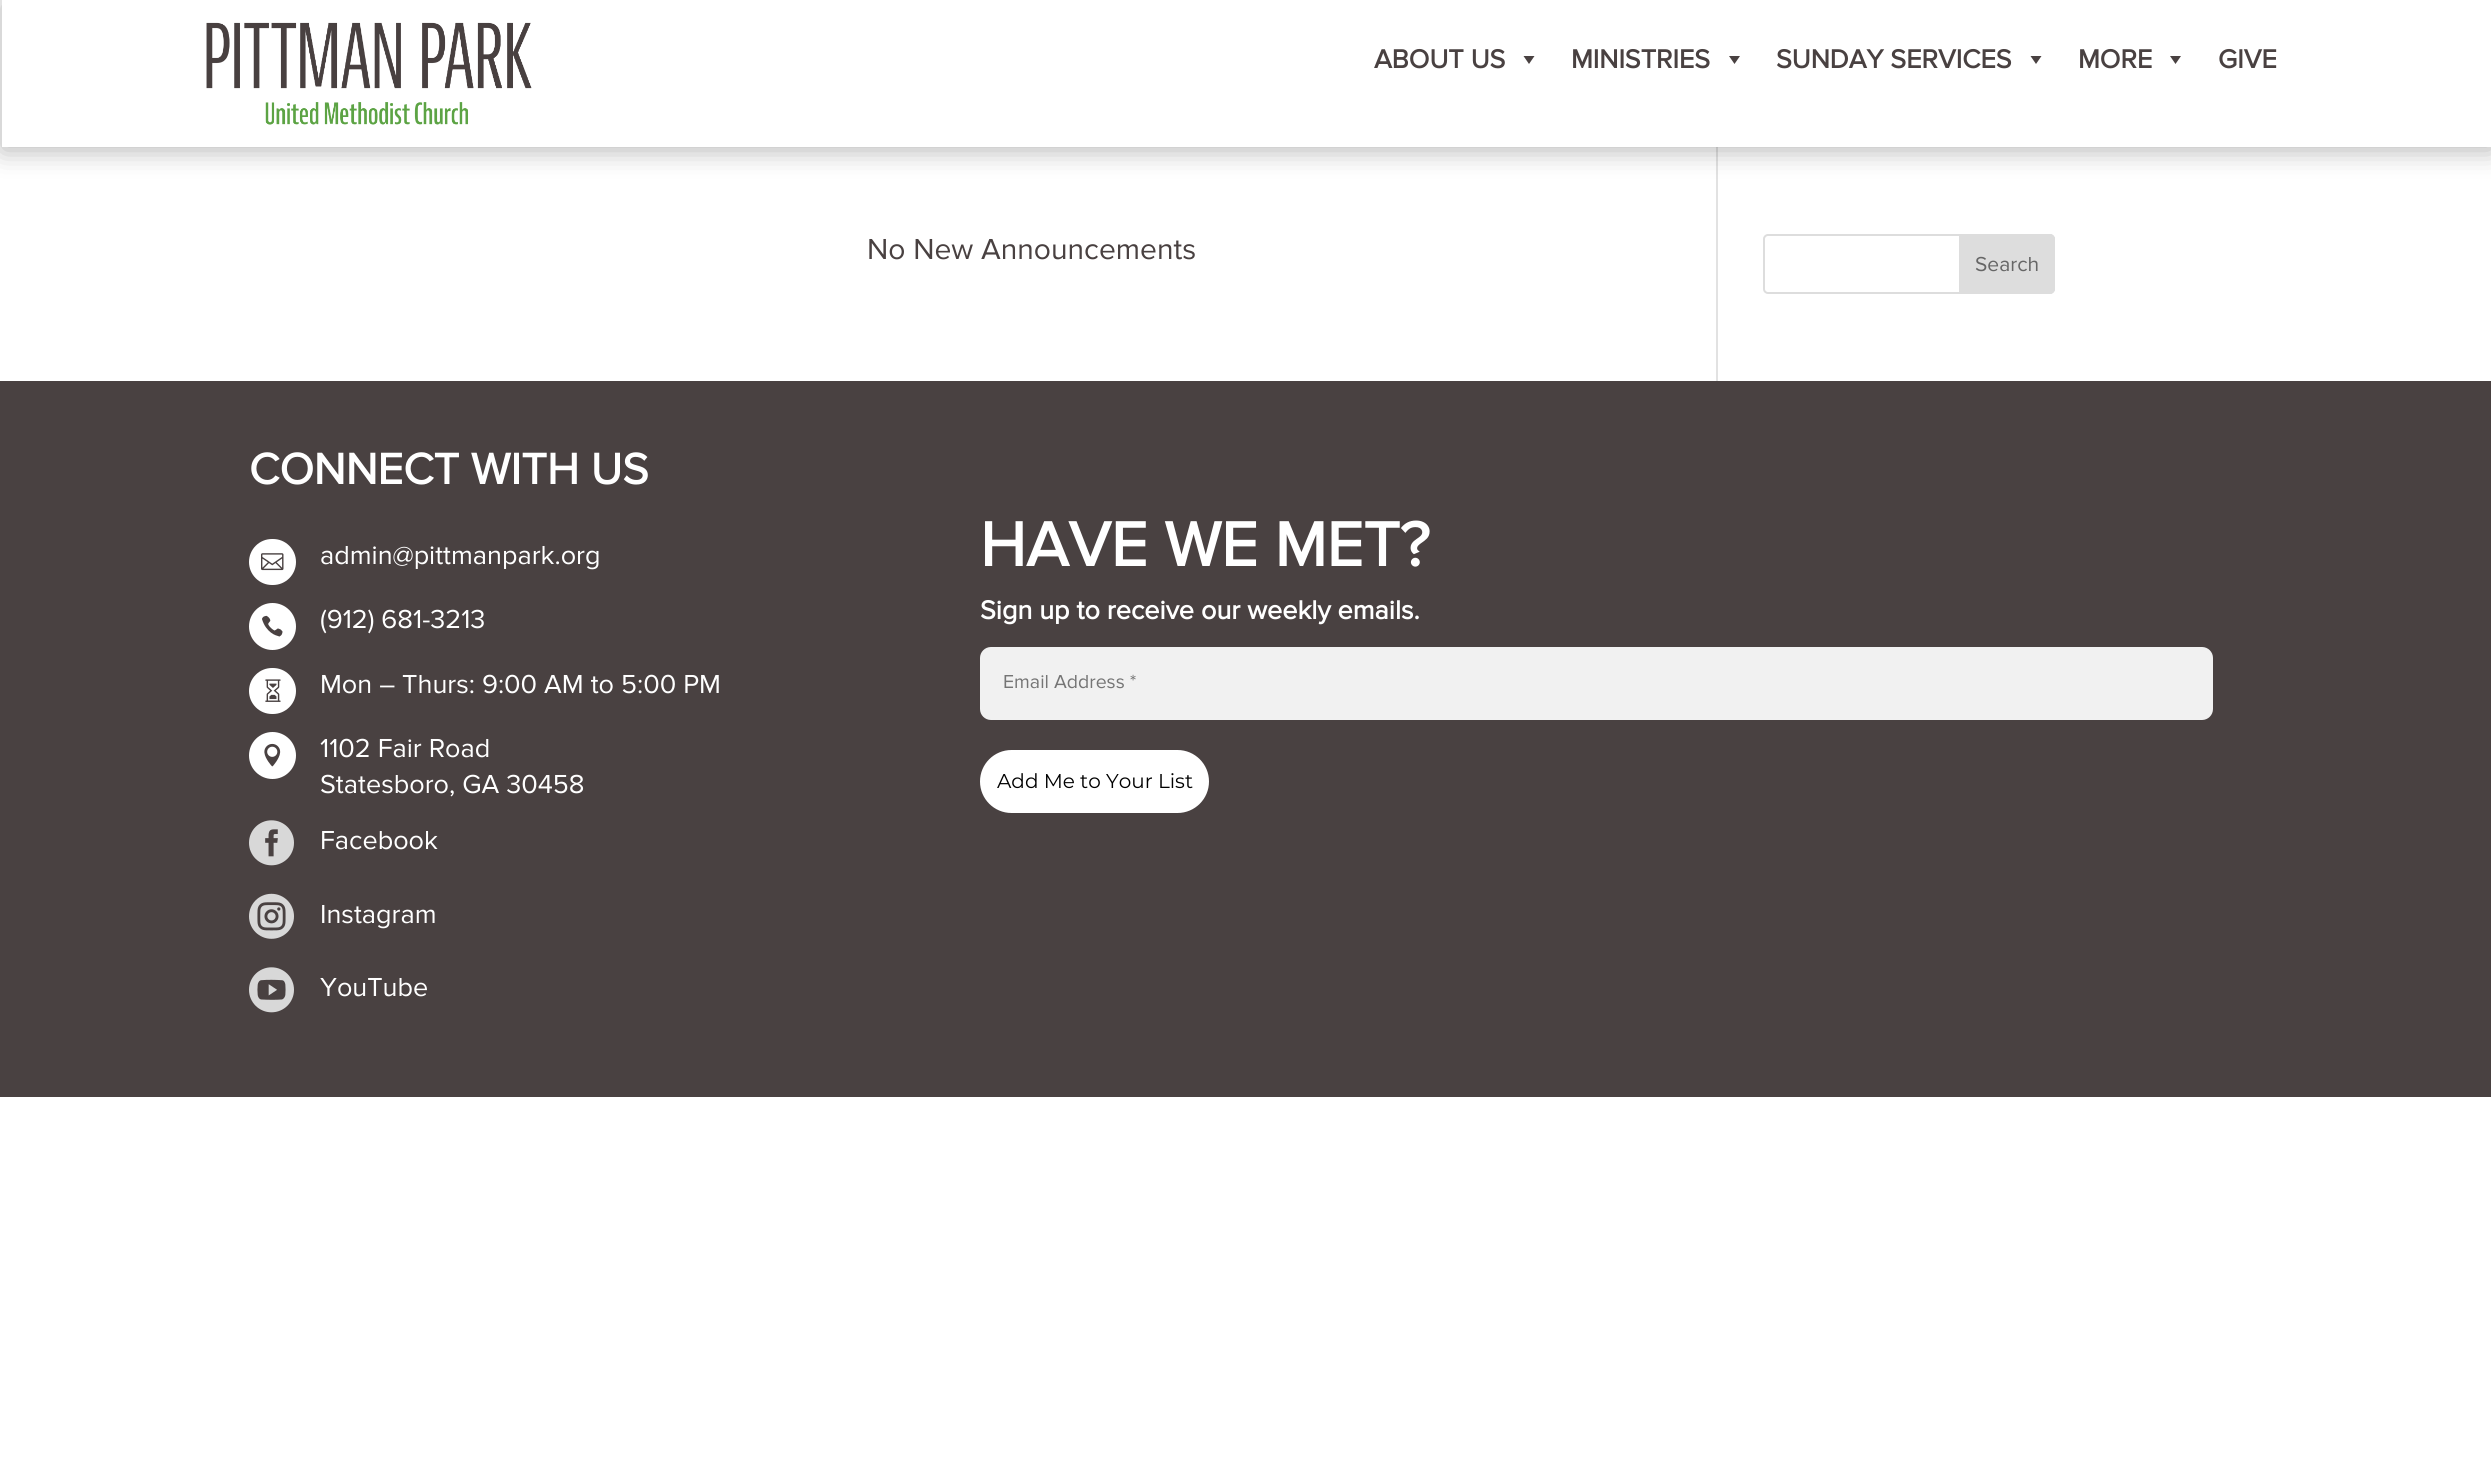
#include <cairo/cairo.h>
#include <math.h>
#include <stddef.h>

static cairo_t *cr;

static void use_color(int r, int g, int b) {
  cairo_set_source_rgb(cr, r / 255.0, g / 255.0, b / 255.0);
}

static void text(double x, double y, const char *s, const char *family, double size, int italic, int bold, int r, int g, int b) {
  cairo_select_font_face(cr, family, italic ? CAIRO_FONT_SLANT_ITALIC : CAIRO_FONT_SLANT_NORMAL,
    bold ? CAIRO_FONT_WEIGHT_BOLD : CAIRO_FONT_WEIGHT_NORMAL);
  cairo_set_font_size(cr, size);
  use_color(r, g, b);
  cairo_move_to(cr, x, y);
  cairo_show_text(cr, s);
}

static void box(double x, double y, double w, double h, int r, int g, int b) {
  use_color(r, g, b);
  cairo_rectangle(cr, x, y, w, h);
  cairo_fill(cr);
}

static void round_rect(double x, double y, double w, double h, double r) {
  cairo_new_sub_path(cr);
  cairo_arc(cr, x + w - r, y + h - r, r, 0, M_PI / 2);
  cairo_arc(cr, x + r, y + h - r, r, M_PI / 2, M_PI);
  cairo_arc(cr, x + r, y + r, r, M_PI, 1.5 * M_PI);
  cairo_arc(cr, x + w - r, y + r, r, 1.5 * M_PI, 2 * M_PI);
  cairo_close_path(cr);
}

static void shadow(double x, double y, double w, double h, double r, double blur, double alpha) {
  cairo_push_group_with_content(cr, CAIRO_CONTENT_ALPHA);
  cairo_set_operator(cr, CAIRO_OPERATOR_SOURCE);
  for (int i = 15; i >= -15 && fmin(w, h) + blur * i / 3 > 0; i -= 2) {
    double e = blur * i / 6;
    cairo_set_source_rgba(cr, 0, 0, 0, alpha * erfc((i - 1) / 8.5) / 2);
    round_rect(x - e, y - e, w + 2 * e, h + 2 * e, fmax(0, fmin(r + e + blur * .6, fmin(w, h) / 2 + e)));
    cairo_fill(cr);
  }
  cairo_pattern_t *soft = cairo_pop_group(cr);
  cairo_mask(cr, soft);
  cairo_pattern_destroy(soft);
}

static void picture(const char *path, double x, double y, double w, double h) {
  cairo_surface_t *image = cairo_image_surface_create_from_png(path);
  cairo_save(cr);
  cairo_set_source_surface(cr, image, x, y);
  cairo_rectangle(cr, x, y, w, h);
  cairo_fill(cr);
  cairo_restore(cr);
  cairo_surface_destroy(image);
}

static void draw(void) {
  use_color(255, 255, 255);
  cairo_paint(cr);
  box(1716, 147, 2, 234, 226, 226, 226);
  cairo_save(cr);
  cairo_set_fill_rule(cr, CAIRO_FILL_RULE_EVEN_ODD);
  cairo_new_path(cr);
  cairo_move_to(cr, 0, 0);
  cairo_line_to(cr, 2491, 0);
  cairo_line_to(cr, 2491, 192);
  cairo_line_to(cr, 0, 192);
  cairo_close_path(cr);
  cairo_move_to(cr, 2, 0);
  cairo_line_to(cr, 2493, 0);
  cairo_line_to(cr, 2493, 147);
  cairo_line_to(cr, 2, 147);
  cairo_close_path(cr);
  cairo_clip(cr);
  use_color(0, 0, 0);
  shadow(2, 3, 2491, 147, 0, 13.5, 0.3);
  cairo_restore(cr);
  picture("img_01.png", 206, 22, 326, 103);
  use_color(73, 65, 65);
  cairo_new_path(cr);
  cairo_move_to(cr, 1534.5, 56);
  cairo_line_to(cr, 1529, 64);
  cairo_line_to(cr, 1523.5, 56);
  cairo_close_path(cr);
  cairo_fill(cr);
  cairo_new_path(cr);
  cairo_move_to(cr, 1740, 56);
  cairo_line_to(cr, 1734.5, 64);
  cairo_line_to(cr, 1729, 56);
  cairo_close_path(cr);
  cairo_fill(cr);
  cairo_new_path(cr);
  cairo_move_to(cr, 2041.5, 56);
  cairo_line_to(cr, 2036, 64);
  cairo_line_to(cr, 2030.5, 56);
  cairo_close_path(cr);
  cairo_fill(cr);
  cairo_new_path(cr);
  cairo_move_to(cr, 2181, 56);
  cairo_line_to(cr, 2175.5, 64);
  cairo_line_to(cr, 2170, 56);
  cairo_close_path(cr);
  cairo_fill(cr);
  round_rect(1764, 235, 290, 58, 4);
  use_color(221, 221, 221);
  cairo_stroke(cr);
  cairo_new_path(cr);
  cairo_move_to(cr, 1960, 235);
  cairo_line_to(cr, 2050, 235);
  cairo_curve_to(cr, 2052, 235, 2054, 237, 2054, 239);
  cairo_line_to(cr, 2054, 289);
  cairo_curve_to(cr, 2054, 291, 2052, 293, 2050, 293);
  cairo_line_to(cr, 1960, 293);
  cairo_close_path(cr);
  cairo_fill_preserve(cr);
  cairo_stroke(cr);
  box(0, 381, 2491, 716, 73, 65, 65);
  use_color(255, 255, 255);
  round_rect(249, 539, 47, 46, 23);
  cairo_fill(cr);
  picture("img_02.png", 261, 553, 23, 18);
  cairo_arc(cr, 272.5, 626.5, 23.5, 0, 2 * M_PI);
  cairo_fill(cr);
  picture("img_03.png", 262, 615, 21, 22);
  round_rect(249, 668, 47, 46, 23);
  cairo_fill(cr);
  picture("img_04.png", 265, 679, 16, 23);
  cairo_arc(cr, 272.5, 755.5, 23.5, 0, 2 * M_PI);
  cairo_fill(cr);
  picture("img_05.png", 264, 743, 17, 24);
  picture("img_06.png", 249, 820, 45, 46);
  picture("img_07.png", 249, 893, 45, 46);
  picture("img_08.png", 249, 967, 45, 46);
  use_color(241, 241, 241);
  round_rect(980, 647, 1233, 73, 11);
  cairo_fill(cr);
  use_color(255, 255, 255);
  round_rect(981.5, 751.5, 226, 60, 30);
  cairo_fill_preserve(cr);
  cairo_set_line_width(cr, 3);
  cairo_stroke(cr);
  text(1374, 68, "ABOUT US", "Proxima Nova", 27, 0, 1, 73, 65, 65);
  text(1571, 68, "MINISTRIES", "Proxima Nova", 27, 0, 1, 73, 65, 65);
  text(1776, 68, "SUNDAY SERVICES", "Proxima Nova", 27, 0, 1, 73, 65, 65);
  text(2078, 68, "MORE", "Proxima Nova", 27, 0, 1, 73, 65, 65);
  text(2218, 68, "GIVE", "Proxima Nova", 27, 0, 1, 73, 65, 65);
  text(867, 259, "No New Announcements", "Proxima Nova", 30, 0, 0, 73, 65, 65);
  text(1975, 271, "Search", "Proxima Nova", 21, 0, 0, 102, 102, 102);
  text(249, 484, "CONNECT WITH US", "Proxima Nova", 45, 0, 1, 255, 255, 255);
  text(320, 564, "admin@pittmanpark.org", "Proxima Nova", 27, 0, 0, 255, 255, 255);
  text(320, 628, "(912) 681-3213", "Proxima Nova", 27, 0, 0, 255, 255, 255);
  text(320, 693, "Mon – Thurs: 9:00 AM to 5:00 PM", "Proxima Nova", 27, 0, 0, 255, 255, 255);
  text(320, 757, "1102 Fair Road", "Proxima Nova", 27, 0, 0, 255, 255, 255);
  text(320, 793, "Statesboro, GA 30458", "Proxima Nova", 27, 0, 0, 255, 255, 255);
  text(320, 849, "Facebook", "Proxima Nova", 27, 0, 0, 255, 255, 255);
  text(320, 923, "Instagram", "Proxima Nova", 27, 0, 0, 255, 255, 255);
  text(320, 996, "YouTube", "Proxima Nova", 27, 0, 0, 255, 255, 255);
  text(980, 566, "HAVE WE MET?", "Proxima Nova", 64.5, 0, 1, 255, 255, 255);
  text(980, 619, "Sign up to receive our weekly emails.", "Proxima Nova", 27, 0, 1, 255, 255, 255);
  text(1003, 688, "Email Address *", "Proxima Nova", 19.5, 0, 0, 117, 117, 117);
  text(997, 788, "Add Me to Your List", "Montserrat", 20, 0, 0, 0, 0, 0);
}

int main(void) {
  cairo_surface_t *surface = cairo_image_surface_create(CAIRO_FORMAT_RGB24, 2491, 1482);
  cr = cairo_create(surface);
  cairo_font_options_t *options = cairo_font_options_create();
  cairo_font_options_set_hint_metrics(options, CAIRO_HINT_METRICS_OFF);
  cairo_font_options_set_hint_style(options, CAIRO_HINT_STYLE_NONE);
  cairo_set_font_options(cr, options);
  cairo_set_miter_limit(cr, 4);
  draw();
  cairo_surface_write_to_png(surface, "out.png");
  cairo_font_options_destroy(options);
  cairo_destroy(cr);
  cairo_surface_destroy(surface);
  return 0;
}
